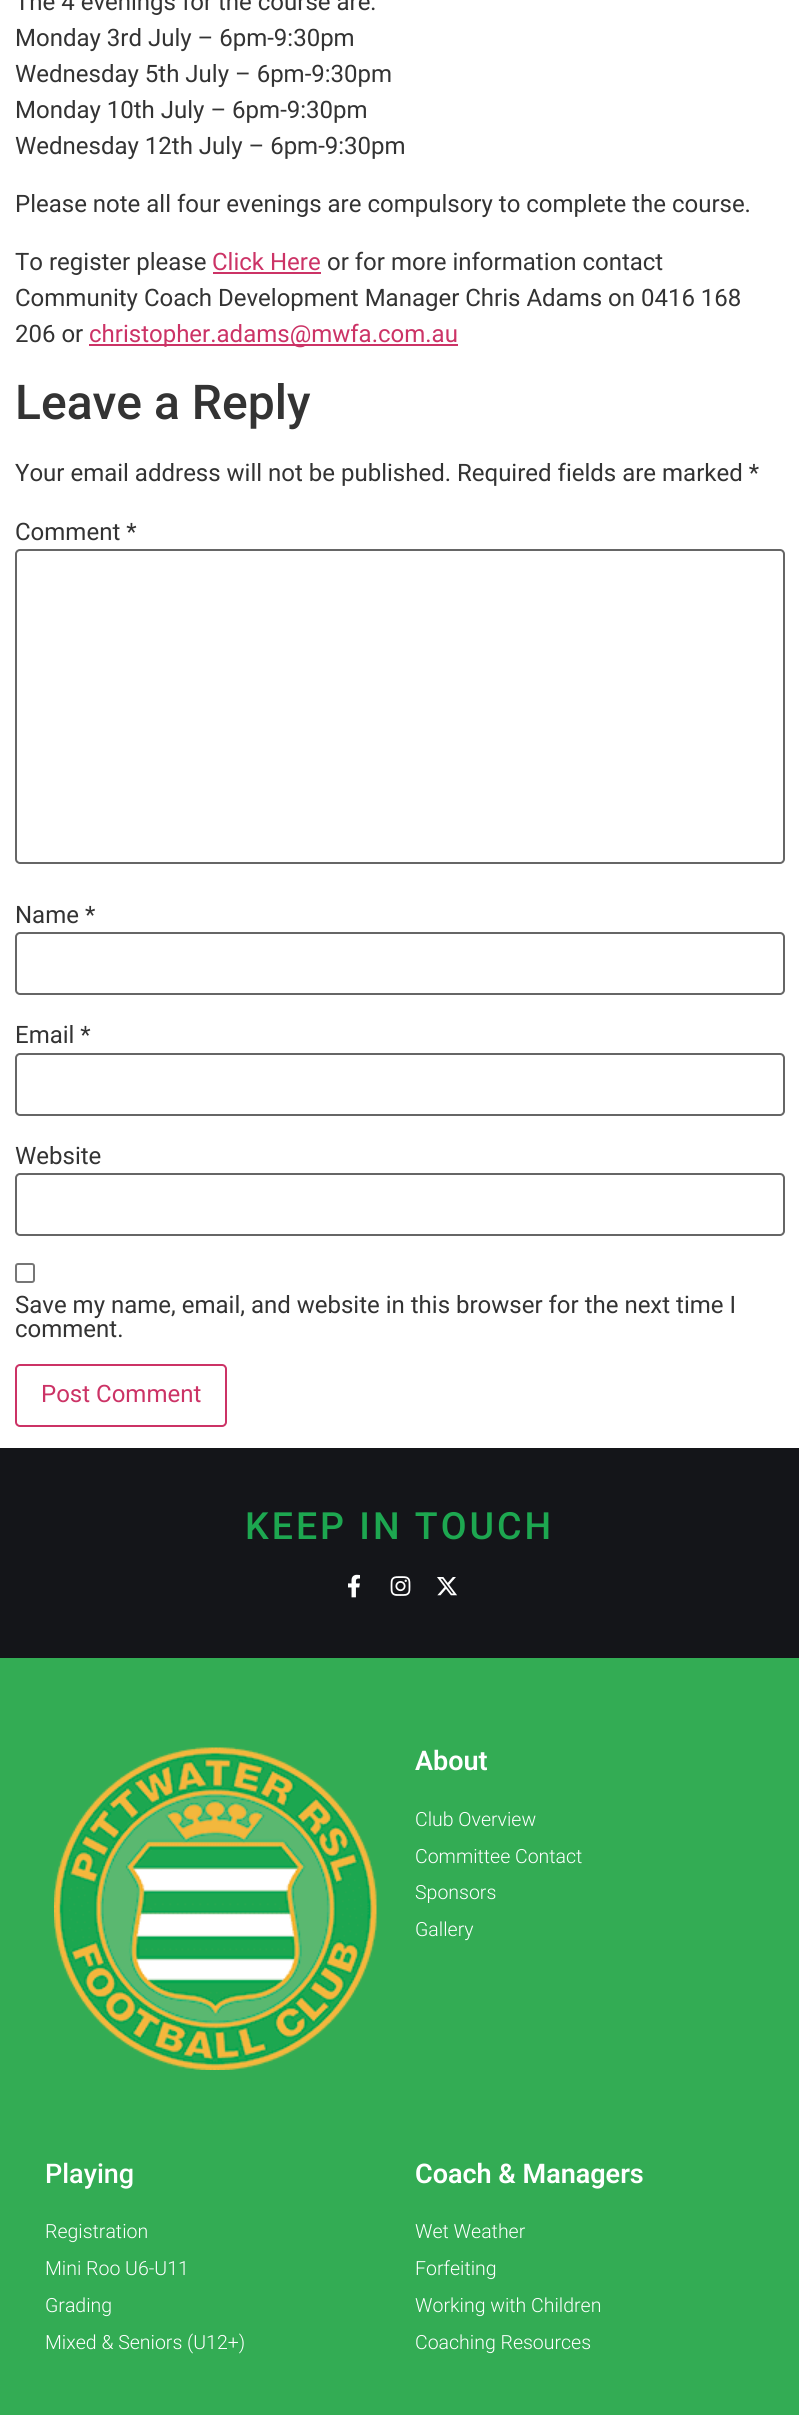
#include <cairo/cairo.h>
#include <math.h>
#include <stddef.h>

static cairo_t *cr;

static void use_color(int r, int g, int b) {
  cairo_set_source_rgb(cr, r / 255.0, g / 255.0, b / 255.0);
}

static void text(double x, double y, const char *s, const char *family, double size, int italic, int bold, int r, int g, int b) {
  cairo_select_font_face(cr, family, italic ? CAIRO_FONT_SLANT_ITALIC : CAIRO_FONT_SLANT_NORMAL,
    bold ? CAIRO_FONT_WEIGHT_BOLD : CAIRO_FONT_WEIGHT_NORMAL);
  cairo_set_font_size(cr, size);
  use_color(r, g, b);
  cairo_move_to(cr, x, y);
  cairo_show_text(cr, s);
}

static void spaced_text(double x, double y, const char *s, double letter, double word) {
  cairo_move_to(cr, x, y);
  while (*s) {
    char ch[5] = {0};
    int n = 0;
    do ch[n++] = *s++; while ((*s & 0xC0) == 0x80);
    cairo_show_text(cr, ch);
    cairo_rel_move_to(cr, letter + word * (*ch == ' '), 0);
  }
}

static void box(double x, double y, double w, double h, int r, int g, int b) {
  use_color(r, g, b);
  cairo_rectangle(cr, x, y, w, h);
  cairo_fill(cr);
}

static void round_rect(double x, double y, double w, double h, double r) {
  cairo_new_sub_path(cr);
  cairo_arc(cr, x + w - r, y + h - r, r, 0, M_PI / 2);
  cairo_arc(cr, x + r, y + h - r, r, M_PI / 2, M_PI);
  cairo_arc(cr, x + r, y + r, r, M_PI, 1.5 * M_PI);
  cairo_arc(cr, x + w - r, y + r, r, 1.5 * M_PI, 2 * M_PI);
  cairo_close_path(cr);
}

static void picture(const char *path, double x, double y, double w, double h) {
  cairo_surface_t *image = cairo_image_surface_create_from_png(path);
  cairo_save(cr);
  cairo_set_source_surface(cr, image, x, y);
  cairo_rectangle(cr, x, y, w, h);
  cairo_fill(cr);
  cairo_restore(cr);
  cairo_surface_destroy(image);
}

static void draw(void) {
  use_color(255, 255, 255);
  cairo_paint(cr);
  box(213, 272, 108, 2, 204, 51, 102);
  box(89, 344, 369, 2, 204, 51, 102);
  round_rect(16, 550, 768, 313, 4);
  use_color(102, 102, 102);
  cairo_stroke(cr);
  round_rect(16, 933, 768, 61, 4);
  cairo_stroke(cr);
  round_rect(16, 1054, 768, 61, 4);
  cairo_stroke(cr);
  round_rect(16, 1174, 768, 61, 4);
  cairo_stroke(cr);
  round_rect(16, 1264, 18, 18, 2);
  use_color(118, 118, 118);
  cairo_stroke(cr);
  round_rect(16, 1365, 210, 61, 4);
  use_color(204, 51, 102);
  cairo_stroke(cr);
  box(0, 1448, 799, 210, 20, 21, 25);
  picture("img_01.png", 348, 1574, 12, 24);
  picture("img_02.png", 390, 1576, 21, 20);
  picture("img_03.png", 437, 1577, 20, 19);
  box(0, 1658, 799, 757, 51, 172, 84);
  picture("img_04.png", 54, 1747, 323, 323);
  text(15, 10, "The 4 evenings for the course are:", "Roboto", 24, 0, 0, 51, 51, 51);
  text(15, 46, "Monday 3rd July – 6pm-9:30pm", "Roboto", 24, 0, 0, 51, 51, 51);
  text(15, 82, "Wednesday 5th July – 6pm-9:30pm", "Roboto", 24, 0, 0, 51, 51, 51);
  text(15, 118, "Monday 10th July – 6pm-9:30pm", "Roboto", 24, 0, 0, 51, 51, 51);
  text(15, 154, "Wednesday 12th July – 6pm-9:30pm", "Roboto", 24, 0, 0, 51, 51, 51);
  text(15, 212, "Please note all four evenings are compulsory to complete the course.", "Roboto", 24, 0, 0, 51, 51, 51);
  text(15, 270, "To register please", "Roboto", 24, 0, 0, 51, 51, 51);
  text(212, 270, "Click Here", "Roboto", 24, 0, 0, 204, 51, 102);
  text(327, 270, "or for more information contact", "Roboto", 24, 0, 0, 51, 51, 51);
  text(15, 306, "Community Coach Development Manager Chris Adams on 0416 168", "Roboto", 24, 0, 0, 51, 51, 51);
  text(15, 342, "206 or", "Roboto", 24, 0, 0, 51, 51, 51);
  text(89, 342, "christopher.adams@mwfa.com.au", "Roboto", 24, 0, 0, 204, 51, 102);
  text(15, 419, "Leave a Reply", "Roboto Medium", 48, 0, 0, 51, 51, 51);
  text(15, 481, "Your email address will not be published. Required fields are marked *", "Roboto", 24, 0, 0, 51, 51, 51);
  text(15, 540, "Comment *", "Roboto", 24, 0, 0, 51, 51, 51);
  text(15, 923, "Name *", "Roboto", 24, 0, 0, 51, 51, 51);
  text(15, 1043, "Email *", "Roboto", 24, 0, 0, 51, 51, 51);
  text(15, 1164, "Website", "Roboto", 24, 0, 0, 51, 51, 51);
  text(15, 1313, "Save my name, email, and website in this browser for the next time I", "Roboto", 24, 0, 0, 51, 51, 51);
  text(15, 1337, "comment.", "Roboto", 24, 0, 0, 51, 51, 51);
  text(41, 1402, "Post Comment", "Roboto", 24, 0, 0, 204, 51, 102);
  cairo_select_font_face(cr, "Roboto Medium", CAIRO_FONT_SLANT_NORMAL, CAIRO_FONT_WEIGHT_NORMAL);
  cairo_set_font_size(cr, 37.5);
  use_color(29, 167, 80);
  spaced_text(245, 1539, "KEEP IN TOUCH", 3, 0);
  text(415, 1770, "About", "Roboto SemiBold", 27, 0, 0, 255, 255, 255);
  text(415, 1826, "Club Overview", "Roboto Light", 19.5, 0, 0, 255, 255, 255);
  text(415, 1863, "Committee Contact", "Roboto Light", 19.5, 0, 0, 255, 255, 255);
  text(415, 1899, "Sponsors", "Roboto Light", 19.5, 0, 0, 255, 255, 255);
  text(415, 1936, "Gallery", "Roboto Light", 19.5, 0, 0, 255, 255, 255);
  text(45, 2183, "Playing", "Roboto Medium", 27, 0, 0, 255, 255, 255);
  text(45, 2238, "Registration", "Roboto Light", 19.5, 0, 0, 255, 255, 255);
  text(45, 2275, "Mini Roo U6-U11", "Roboto Light", 19.5, 0, 0, 255, 255, 255);
  text(45, 2312, "Grading", "Roboto Light", 19.5, 0, 0, 255, 255, 255);
  text(45, 2349, "Mixed & Seniors (U12+)", "Roboto Light", 19.5, 0, 0, 255, 255, 255);
  text(415, 2183, "Coach & Managers", "Roboto SemiBold", 27, 0, 0, 255, 255, 255);
  text(415, 2238, "Wet Weather", "Roboto Light", 19.5, 0, 0, 255, 255, 255);
  text(415, 2275, "Forfeiting", "Roboto Light", 19.5, 0, 0, 255, 255, 255);
  text(415, 2312, "Working with Children", "Roboto Light", 19.5, 0, 0, 255, 255, 255);
  text(415, 2349, "Coaching Resources", "Roboto Light", 19.5, 0, 0, 255, 255, 255);
}

int main(void) {
  cairo_surface_t *surface = cairo_image_surface_create(CAIRO_FORMAT_RGB24, 799, 2415);
  cr = cairo_create(surface);
  cairo_font_options_t *options = cairo_font_options_create();
  cairo_font_options_set_hint_metrics(options, CAIRO_HINT_METRICS_OFF);
  cairo_font_options_set_hint_style(options, CAIRO_HINT_STYLE_NONE);
  cairo_set_font_options(cr, options);
  cairo_set_miter_limit(cr, 4);
  draw();
  cairo_surface_write_to_png(surface, "out.png");
  cairo_font_options_destroy(options);
  cairo_destroy(cr);
  cairo_surface_destroy(surface);
  return 0;
}
